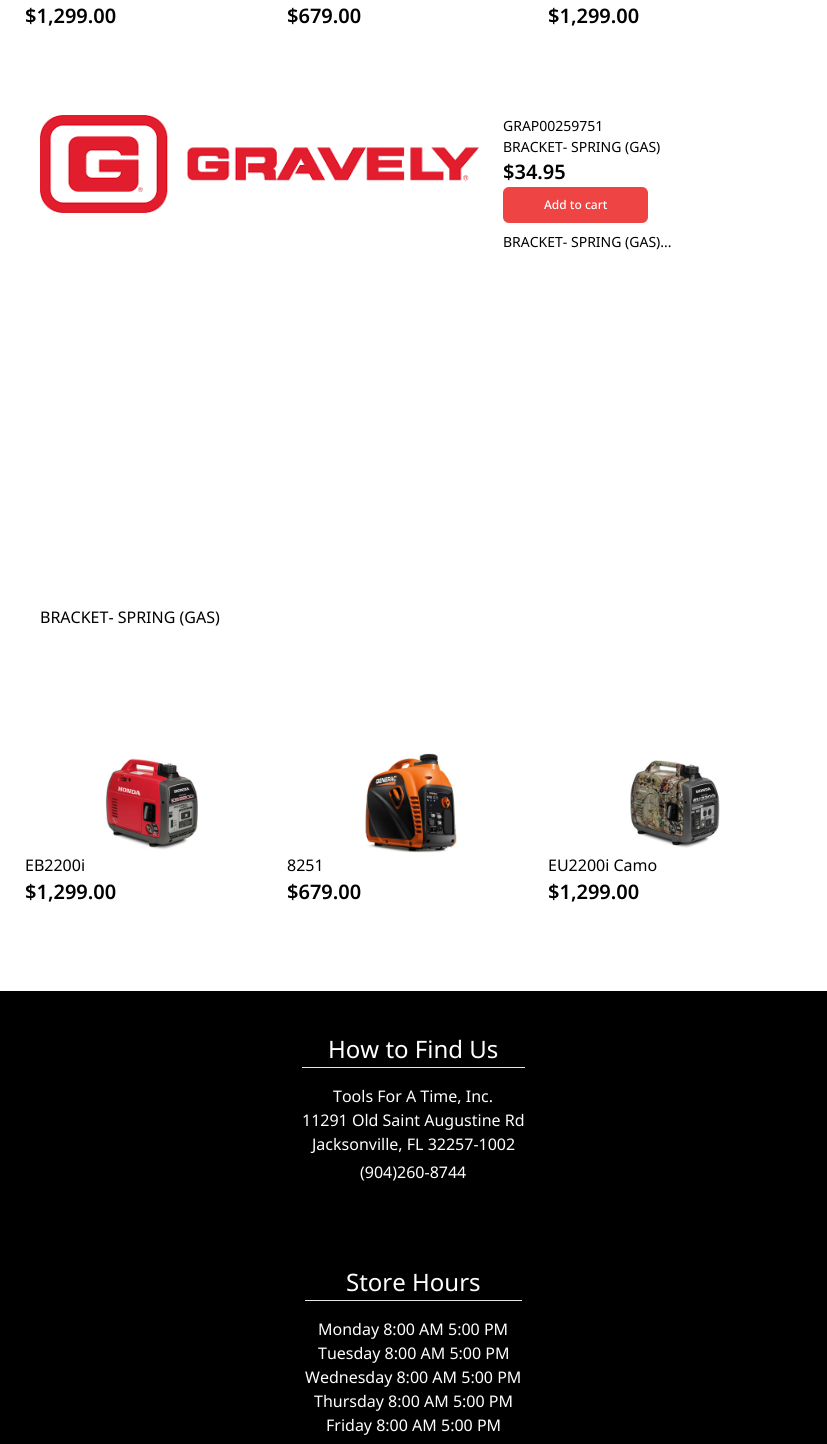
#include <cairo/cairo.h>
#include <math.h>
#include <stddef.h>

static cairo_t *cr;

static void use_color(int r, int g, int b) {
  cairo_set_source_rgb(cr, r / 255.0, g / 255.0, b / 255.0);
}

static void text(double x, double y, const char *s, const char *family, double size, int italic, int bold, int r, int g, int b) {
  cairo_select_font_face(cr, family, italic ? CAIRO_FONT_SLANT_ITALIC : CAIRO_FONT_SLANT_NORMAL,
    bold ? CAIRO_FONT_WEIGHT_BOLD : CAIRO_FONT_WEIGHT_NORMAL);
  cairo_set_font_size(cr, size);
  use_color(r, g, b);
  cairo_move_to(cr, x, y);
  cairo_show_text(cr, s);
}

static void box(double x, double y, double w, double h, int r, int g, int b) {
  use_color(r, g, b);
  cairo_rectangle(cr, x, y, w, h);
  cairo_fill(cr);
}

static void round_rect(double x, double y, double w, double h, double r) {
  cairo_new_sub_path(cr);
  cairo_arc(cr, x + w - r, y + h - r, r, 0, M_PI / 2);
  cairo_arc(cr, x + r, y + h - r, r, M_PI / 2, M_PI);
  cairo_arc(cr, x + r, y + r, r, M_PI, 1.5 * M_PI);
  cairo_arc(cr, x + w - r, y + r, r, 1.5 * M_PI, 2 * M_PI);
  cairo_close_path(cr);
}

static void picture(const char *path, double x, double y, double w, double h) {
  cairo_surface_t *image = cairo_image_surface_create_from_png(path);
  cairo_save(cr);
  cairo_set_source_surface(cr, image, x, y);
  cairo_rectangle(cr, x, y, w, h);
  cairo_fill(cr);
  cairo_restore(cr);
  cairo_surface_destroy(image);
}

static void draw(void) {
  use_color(255, 255, 255);
  cairo_paint(cr);
  picture("img_01.png", 40, 115, 439, 98);
  use_color(239, 68, 68);
  round_rect(503, 187, 145, 36, 6);
  cairo_fill(cr);
  picture("img_02.png", 105, 758, 93, 92);
  picture("img_03.png", 365, 753, 92, 100);
  picture("img_04.png", 630, 760, 90, 88);
  box(0, 991, 827, 453, 0, 0, 0);
  box(302, 1067, 223, 1, 229, 231, 235);
  box(305, 1300, 217, 1, 229, 231, 235);
  text(25, 23, "$1,299.00", "Noto Sans SemiBold", 20, 0, 0, 0, 0, 0);
  text(287, 23, "$679.00", "Noto Sans SemiBold", 20, 0, 0, 0, 0, 0);
  text(548, 23, "$1,299.00", "Noto Sans SemiBold", 20, 0, 0, 0, 0, 0);
  text(503, 131, "GRAP00259751", "Noto Sans", 14, 0, 0, 0, 0, 0);
  text(503, 152, "BRACKET- SPRING (GAS)", "Noto Sans", 14, 0, 0, 0, 0, 0);
  text(503, 179, "$34.95", "Noto Sans SemiBold", 20, 0, 0, 0, 0, 0);
  text(544, 209, "Add to cart", "Noto Sans Medium", 12, 0, 0, 255, 255, 255);
  text(503, 247, "BRACKET- SPRING (GAS)...", "Noto Sans", 14, 0, 0, 0, 0, 0);
  text(40, 623, "BRACKET- SPRING (GAS)", "Noto Sans", 16, 0, 0, 0, 0, 0);
  text(25, 871, "EB2200i", "Noto Sans", 16, 0, 0, 0, 0, 0);
  text(25, 899, "$1,299.00", "Noto Sans SemiBold", 20, 0, 0, 0, 0, 0);
  text(287, 871, "8251", "Noto Sans", 16, 0, 0, 0, 0, 0);
  text(287, 899, "$679.00", "Noto Sans SemiBold", 20, 0, 0, 0, 0, 0);
  text(548, 871, "EU2200i Camo", "Noto Sans", 16, 0, 0, 0, 0, 0);
  text(548, 899, "$1,299.00", "Noto Sans SemiBold", 20, 0, 0, 0, 0, 0);
  text(328, 1058, "How to Find Us", "Noto Sans", 24, 0, 0, 255, 255, 255);
  text(333, 1102, "Tools For A Time, Inc.", "Noto Sans", 16, 0, 0, 255, 255, 255);
  text(302, 1126, "11291 Old Saint Augustine Rd", "Noto Sans", 16, 0, 0, 255, 255, 255);
  text(312, 1150, "Jacksonville, FL 32257-1002", "Noto Sans", 16, 0, 0, 255, 255, 255);
  text(360, 1178, "(904)260-8744", "Noto Sans", 16, 0, 0, 255, 255, 255);
  text(346, 1291, "Store Hours", "Noto Sans", 24, 0, 0, 255, 255, 255);
  text(318, 1335, "Monday 8:00 AM 5:00 PM", "Noto Sans", 16, 0, 0, 255, 255, 255);
  text(318, 1359, "Tuesday 8:00 AM 5:00 PM", "Noto Sans", 16, 0, 0, 255, 255, 255);
  text(305, 1383, "Wednesday 8:00 AM 5:00 PM", "Noto Sans", 16, 0, 0, 255, 255, 255);
  text(314, 1407, "Thursday 8:00 AM 5:00 PM", "Noto Sans", 16, 0, 0, 255, 255, 255);
  text(326, 1431, "Friday 8:00 AM 5:00 PM", "Noto Sans", 16, 0, 0, 255, 255, 255);
}

int main(void) {
  cairo_surface_t *surface = cairo_image_surface_create(CAIRO_FORMAT_RGB24, 827, 1444);
  cr = cairo_create(surface);
  cairo_font_options_t *options = cairo_font_options_create();
  cairo_font_options_set_hint_metrics(options, CAIRO_HINT_METRICS_OFF);
  cairo_font_options_set_hint_style(options, CAIRO_HINT_STYLE_NONE);
  cairo_set_font_options(cr, options);
  cairo_set_miter_limit(cr, 4);
  draw();
  cairo_surface_write_to_png(surface, "out.png");
  cairo_font_options_destroy(options);
  cairo_destroy(cr);
  cairo_surface_destroy(surface);
  return 0;
}
